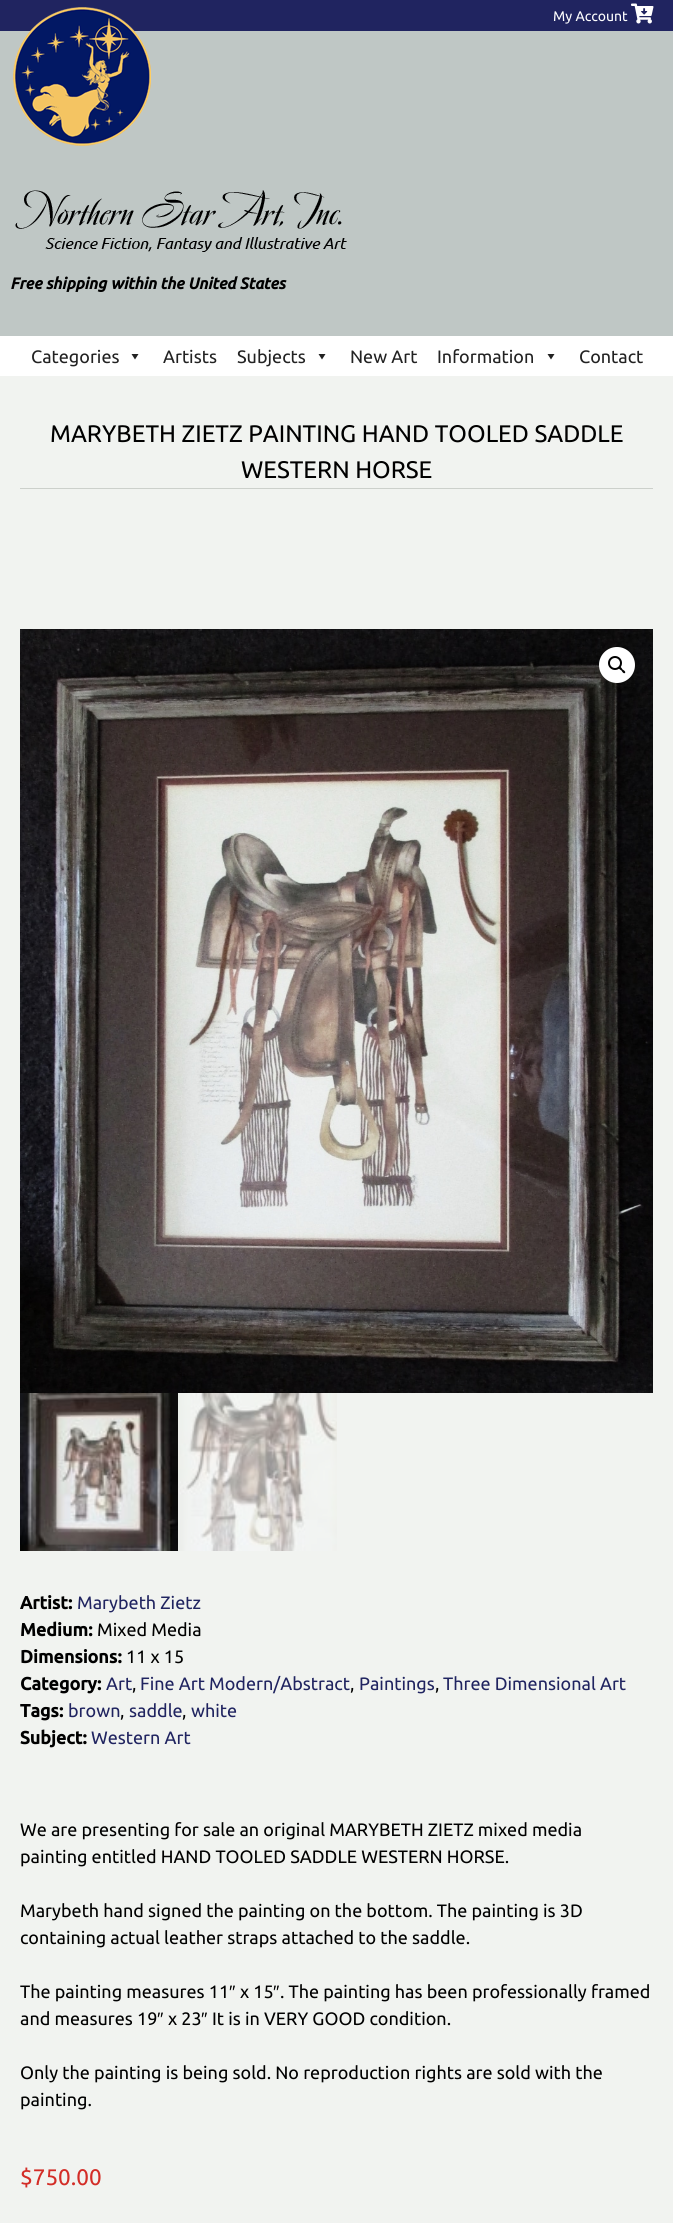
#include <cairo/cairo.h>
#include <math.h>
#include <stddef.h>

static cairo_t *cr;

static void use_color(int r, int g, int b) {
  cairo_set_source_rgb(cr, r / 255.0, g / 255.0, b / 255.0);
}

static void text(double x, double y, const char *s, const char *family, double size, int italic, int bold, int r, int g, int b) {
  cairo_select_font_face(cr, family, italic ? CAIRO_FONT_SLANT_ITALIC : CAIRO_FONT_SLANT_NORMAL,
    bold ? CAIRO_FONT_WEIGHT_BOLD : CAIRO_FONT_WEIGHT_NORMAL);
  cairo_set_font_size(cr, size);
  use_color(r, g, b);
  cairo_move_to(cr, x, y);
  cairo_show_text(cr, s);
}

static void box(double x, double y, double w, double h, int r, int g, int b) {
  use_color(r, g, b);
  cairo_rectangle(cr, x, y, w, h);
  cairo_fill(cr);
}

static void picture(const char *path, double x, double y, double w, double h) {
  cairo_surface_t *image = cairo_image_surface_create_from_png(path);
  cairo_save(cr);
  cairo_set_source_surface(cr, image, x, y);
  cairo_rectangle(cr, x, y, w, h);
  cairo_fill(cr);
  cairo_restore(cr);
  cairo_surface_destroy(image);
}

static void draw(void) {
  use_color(241, 243, 240);
  cairo_paint(cr);
  box(0, 31, 673, 305, 191, 199, 197);
  box(0, 0, 673, 31, 32, 36, 96);
  picture("img_01.png", 631, 3, 23, 21);
  picture("img_02.png", 13, 7, 138, 139);
  picture("img_03.png", 15, 190, 332, 62);
  box(0, 336, 673, 40, 255, 255, 255);
  use_color(34, 34, 34);
  cairo_new_path(cr);
  cairo_move_to(cr, 138.5, 354);
  cairo_line_to(cr, 135, 359.5);
  cairo_line_to(cr, 131.5, 354);
  cairo_close_path(cr);
  cairo_fill(cr);
  cairo_new_path(cr);
  cairo_move_to(cr, 325.5, 354);
  cairo_line_to(cr, 322, 359.5);
  cairo_line_to(cr, 318.5, 354);
  cairo_close_path(cr);
  cairo_fill(cr);
  cairo_new_path(cr);
  cairo_move_to(cr, 554.5, 354);
  cairo_line_to(cr, 551, 359.5);
  cairo_line_to(cr, 547.5, 354);
  cairo_close_path(cr);
  cairo_fill(cr);
  box(20, 488, 633, 1, 204, 208, 203);
  picture("img_04.png", 20, 629, 633, 764);
  use_color(255, 255, 255);
  cairo_arc(cr, 617, 665, 18, 0, 2 * M_PI);
  cairo_fill(cr);
  cairo_arc(cr, 615, 663, 6, 0, 2 * M_PI);
  use_color(0, 0, 0);
  cairo_stroke(cr);
  cairo_new_path(cr);
  cairo_move_to(cr, 619, 667);
  cairo_curve_to(cr, 620.5, 666, 622, 668.5, 622.5, 669.5);
  cairo_curve_to(cr, 623.5, 670, 626, 671.5, 625, 673);
  cairo_curve_to(cr, 623.5, 674, 622, 671.5, 621.5, 670.5);
  cairo_curve_to(cr, 620.5, 670, 618, 668.5, 619, 667);
  cairo_close_path(cr);
  cairo_fill(cr);
  picture("img_05.png", 20, 1393, 158, 158);
  picture("img_06.png", 178, 1393, 159, 158);
  text(553, 21, "My Account", "Ubuntu", 14, 0, 0, 255, 255, 255);
  text(10, 289, "Free shipping within the United States", "Ubuntu", 16, 1, 1, 0, 0, 0);
  text(31, 363, "Categories", "Ubuntu", 18, 0, 0, 34, 34, 34);
  text(163, 363, "Artists", "Ubuntu", 18, 0, 0, 34, 34, 34);
  text(237, 363, "Subjects", "Ubuntu", 18, 0, 0, 34, 34, 34);
  text(350, 363, "New Art", "Ubuntu", 18, 0, 0, 34, 34, 34);
  text(437, 363, "Information", "Ubuntu", 18, 0, 0, 34, 34, 34);
  text(579, 363, "Contact", "Ubuntu", 18, 0, 0, 34, 34, 34);
  text(50, 442, "MARYBETH ZIETZ PAINTING HAND TOOLED SADDLE", "Ubuntu", 24, 0, 0, 0, 0, 0);
  text(241, 478, "WESTERN HORSE", "Ubuntu", 24, 0, 0, 0, 0, 0);
  text(20, 1609, "Artist:", "Ubuntu", 18, 0, 1, 0, 0, 0);
  text(77, 1609, "Marybeth Zietz", "Ubuntu", 18, 0, 0, 32, 36, 96);
  text(20, 1636, "Medium:", "Ubuntu", 18, 0, 1, 0, 0, 0);
  text(97, 1636, "Mixed Media", "Ubuntu", 18, 0, 0, 0, 0, 0);
  text(20, 1663, "Dimensions:", "Ubuntu", 18, 0, 1, 0, 0, 0);
  text(126, 1663, "11 x 15", "Ubuntu", 18, 0, 0, 0, 0, 0);
  text(20, 1690, "Category:", "Ubuntu", 18, 0, 1, 0, 0, 0);
  text(106, 1690, "Art", "Ubuntu", 18, 0, 0, 32, 36, 96);
  text(132, 1690, ",", "Ubuntu", 18, 0, 0, 0, 0, 0);
  text(140, 1690, "Fine Art Modern/Abstract", "Ubuntu", 18, 0, 0, 32, 36, 96);
  text(350, 1690, ",", "Ubuntu", 18, 0, 0, 0, 0, 0);
  text(359, 1690, "Paintings", "Ubuntu", 18, 0, 0, 32, 36, 96);
  text(435, 1690, ",", "Ubuntu", 18, 0, 0, 0, 0, 0);
  text(443, 1690, "Three Dimensional Art", "Ubuntu", 18, 0, 0, 32, 36, 96);
  text(20, 1717, "Tags:", "Ubuntu", 18, 0, 1, 0, 0, 0);
  text(68, 1717, "brown", "Ubuntu", 18, 0, 0, 32, 36, 96);
  text(120, 1717, ",", "Ubuntu", 18, 0, 0, 0, 0, 0);
  text(129, 1717, "saddle", "Ubuntu", 18, 0, 0, 32, 36, 96);
  text(182, 1717, ",", "Ubuntu", 18, 0, 0, 0, 0, 0);
  text(191, 1717, "white", "Ubuntu", 18, 0, 0, 32, 36, 96);
  text(20, 1744, "Subject:", "Ubuntu", 18, 0, 1, 0, 0, 0);
  text(91, 1744, "Western Art", "Ubuntu", 18, 0, 0, 32, 36, 96);
  text(20, 1836, "We are presenting for sale an original MARYBETH ZIETZ mixed media", "Ubuntu", 18, 0, 0, 0, 0, 0);
  text(20, 1863, "painting entitled HAND TOOLED SADDLE WESTERN HORSE.", "Ubuntu", 18, 0, 0, 0, 0, 0);
  text(20, 1917, "Marybeth hand signed the painting on the bottom. The painting is 3D", "Ubuntu", 18, 0, 0, 0, 0, 0);
  text(20, 1944, "containing actual leather straps attached to the saddle.", "Ubuntu", 18, 0, 0, 0, 0, 0);
  text(20, 1998, "The painting measures 11", "Ubuntu", 18, 0, 0, 0, 0, 0);
  text(229, 1998, "″", "Liberation Sans", 18, 0, 0, 0, 0, 0);
  text(240, 1998, "x 15", "Ubuntu", 18, 0, 0, 0, 0, 0);
  text(273, 1998, "″", "Liberation Sans", 18, 0, 0, 0, 0, 0);
  text(280, 1998, ". The painting has been professionally framed", "Ubuntu", 18, 0, 0, 0, 0, 0);
  text(20, 2025, "and measures 19", "Ubuntu", 18, 0, 0, 0, 0, 0);
  text(157, 2025, "″", "Liberation Sans", 18, 0, 0, 0, 0, 0);
  text(168, 2025, "x 23", "Ubuntu", 18, 0, 0, 0, 0, 0);
  text(201, 2025, "″", "Liberation Sans", 18, 0, 0, 0, 0, 0);
  text(212, 2025, "It is in VERY GOOD condition.", "Ubuntu", 18, 0, 0, 0, 0, 0);
  text(20, 2079, "Only the painting is being sold. No reproduction rights are sold with the", "Ubuntu", 18, 0, 0, 0, 0, 0);
  text(20, 2106, "painting.", "Ubuntu", 18, 0, 0, 0, 0, 0);
  text(20, 2185, "$750.00", "Ubuntu", 22.5, 0, 0, 211, 45, 39);
}

int main(void) {
  cairo_surface_t *surface = cairo_image_surface_create(CAIRO_FORMAT_RGB24, 673, 2223);
  cr = cairo_create(surface);
  cairo_font_options_t *options = cairo_font_options_create();
  cairo_font_options_set_hint_metrics(options, CAIRO_HINT_METRICS_OFF);
  cairo_font_options_set_hint_style(options, CAIRO_HINT_STYLE_NONE);
  cairo_set_font_options(cr, options);
  cairo_set_miter_limit(cr, 4);
  draw();
  cairo_surface_write_to_png(surface, "out.png");
  cairo_font_options_destroy(options);
  cairo_destroy(cr);
  cairo_surface_destroy(surface);
  return 0;
}
